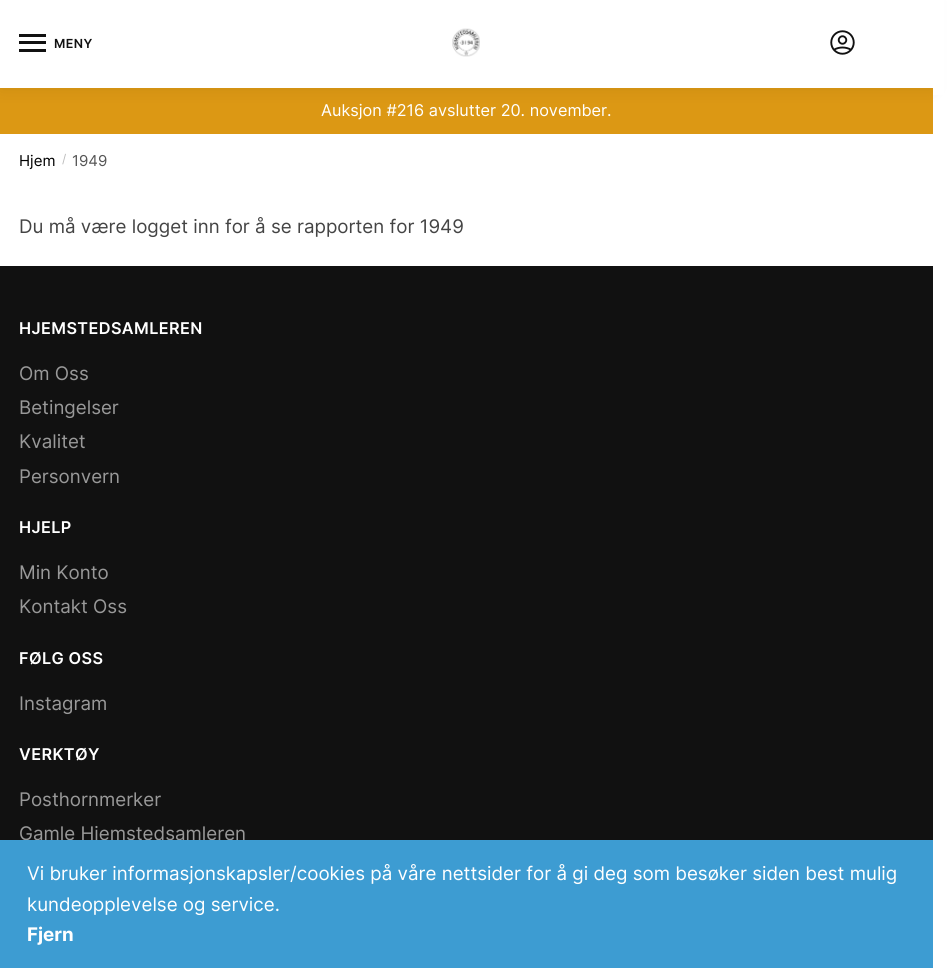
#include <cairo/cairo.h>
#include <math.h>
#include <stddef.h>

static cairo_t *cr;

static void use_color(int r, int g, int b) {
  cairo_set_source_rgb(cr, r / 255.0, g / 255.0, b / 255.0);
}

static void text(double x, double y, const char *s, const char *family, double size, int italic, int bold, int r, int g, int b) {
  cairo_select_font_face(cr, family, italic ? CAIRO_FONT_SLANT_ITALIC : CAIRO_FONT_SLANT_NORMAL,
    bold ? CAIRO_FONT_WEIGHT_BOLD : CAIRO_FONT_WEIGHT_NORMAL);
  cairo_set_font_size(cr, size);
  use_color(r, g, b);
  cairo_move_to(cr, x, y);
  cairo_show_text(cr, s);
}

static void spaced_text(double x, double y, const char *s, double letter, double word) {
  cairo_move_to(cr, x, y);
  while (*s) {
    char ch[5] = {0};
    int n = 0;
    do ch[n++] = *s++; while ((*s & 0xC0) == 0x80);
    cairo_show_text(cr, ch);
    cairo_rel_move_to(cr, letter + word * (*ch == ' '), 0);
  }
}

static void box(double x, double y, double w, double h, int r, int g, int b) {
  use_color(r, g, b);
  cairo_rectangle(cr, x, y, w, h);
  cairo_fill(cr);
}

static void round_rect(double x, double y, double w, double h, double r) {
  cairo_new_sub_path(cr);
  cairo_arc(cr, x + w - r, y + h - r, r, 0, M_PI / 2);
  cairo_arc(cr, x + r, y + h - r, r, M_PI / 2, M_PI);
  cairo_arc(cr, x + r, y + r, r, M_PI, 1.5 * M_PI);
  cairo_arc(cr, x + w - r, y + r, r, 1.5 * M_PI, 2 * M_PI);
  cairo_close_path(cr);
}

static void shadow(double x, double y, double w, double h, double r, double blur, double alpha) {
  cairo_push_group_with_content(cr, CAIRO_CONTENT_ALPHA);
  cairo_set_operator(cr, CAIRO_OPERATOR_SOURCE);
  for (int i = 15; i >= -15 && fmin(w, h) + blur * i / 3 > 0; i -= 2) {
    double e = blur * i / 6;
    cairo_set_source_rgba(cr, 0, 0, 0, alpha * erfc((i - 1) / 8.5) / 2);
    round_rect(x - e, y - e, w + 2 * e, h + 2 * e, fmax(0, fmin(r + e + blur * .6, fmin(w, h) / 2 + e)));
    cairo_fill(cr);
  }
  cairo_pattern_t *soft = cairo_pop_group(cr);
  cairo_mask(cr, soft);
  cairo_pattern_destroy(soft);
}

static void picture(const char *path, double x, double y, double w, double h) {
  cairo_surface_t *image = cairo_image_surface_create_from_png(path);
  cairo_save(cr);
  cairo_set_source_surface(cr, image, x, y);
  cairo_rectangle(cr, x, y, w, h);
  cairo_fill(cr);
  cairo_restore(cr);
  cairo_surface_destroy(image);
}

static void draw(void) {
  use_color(255, 255, 255);
  cairo_paint(cr);
  box(0, 88, 933, 46, 220, 152, 20);
  use_color(0, 0, 0);
  shadow(0, 1, 933, 88, 0, 9.5, 0.08);
  box(0, 0, 933, 88, 255, 255, 255);
  box(19, 34, 27, 3, 17, 17, 17);
  box(19, 41, 27, 3, 17, 17, 17);
  box(19, 49, 27, 3, 17, 17, 17);
  picture("img_01.png", 452, 28, 28, 29);
  picture("img_02.png", 830, 30, 25, 25);
  box(933, 0, 11, 95, 255, 255, 255);
  box(0, 266, 933, 574, 17, 17, 17);
  cairo_select_font_face(cr, "Inter SemiBold", CAIRO_FONT_SLANT_NORMAL, CAIRO_FONT_WEIGHT_NORMAL);
  cairo_set_font_size(cr, 12.5);
  spaced_text(54, 48, "MENY", 0.4, 0);
  text(321, 116, "Auksjon #216 avslutter 20. november.", "Inter", 16.25, 0, 0, 255, 255, 255);
  text(19, 166, "Hjem", "Inter", 15, 0, 0, 0, 0, 0);
  text(62, 163, "/", "Inter", 12, 0, 0, 187, 187, 187);
  text(72, 166, "1949", "Inter", 15, 0, 0, 85, 85, 85);
  text(19, 233, "Du må være logget inn for å se rapporten for 1949", "Inter", 18.75, 0, 0, 68, 68, 68);
  cairo_select_font_face(cr, "Inter SemiBold", CAIRO_FONT_SLANT_NORMAL, CAIRO_FONT_WEIGHT_NORMAL);
  cairo_set_font_size(cr, 16.25);
  use_color(255, 255, 255);
  spaced_text(19, 334, "HJEMSTEDSAMLEREN", 0.4, 0);
  text(19, 380, "Om Oss", "Inter", 18.75, 0, 0, 153, 153, 153);
  text(19, 414, "Betingelser", "Inter", 18.75, 0, 0, 153, 153, 153);
  text(19, 448, "Kvalitet", "Inter", 18.75, 0, 0, 153, 153, 153);
  text(19, 483, "Personvern", "Inter", 18.75, 0, 0, 153, 153, 153);
  cairo_select_font_face(cr, "Inter SemiBold", CAIRO_FONT_SLANT_NORMAL, CAIRO_FONT_WEIGHT_NORMAL);
  cairo_set_font_size(cr, 16.25);
  use_color(255, 255, 255);
  spaced_text(19, 533, "HJELP", 0.4, 0);
  text(19, 579, "Min Konto", "Inter", 18.75, 0, 0, 153, 153, 153);
  text(19, 613, "Kontakt Oss", "Inter", 18.75, 0, 0, 153, 153, 153);
  cairo_select_font_face(cr, "Inter SemiBold", CAIRO_FONT_SLANT_NORMAL, CAIRO_FONT_WEIGHT_NORMAL);
  cairo_set_font_size(cr, 16.25);
  use_color(255, 255, 255);
  spaced_text(19, 664, "FØLG OSS", 0.4, 0);
  text(19, 710, "Instagram", "Inter", 18.75, 0, 0, 153, 153, 153);
  cairo_select_font_face(cr, "Inter SemiBold", CAIRO_FONT_SLANT_NORMAL, CAIRO_FONT_WEIGHT_NORMAL);
  cairo_set_font_size(cr, 16.25);
  use_color(255, 255, 255);
  spaced_text(19, 760, "VERKTØY", 0.4, 0);
  text(19, 806, "Posthornmerker", "Inter", 18.75, 0, 0, 153, 153, 153);
  text(19, 840, "Gamle Hjemstedsamleren", "Inter", 18.75, 0, 0, 153, 153, 153);
  box(0, 840, 933, 128, 61, 156, 210);
  text(27, 880, "Vi bruker informasjonskapsler/cookies på våre nettsider for å gi deg som besøker siden best mulig", "Inter", 18.75, 0, 0, 255, 255, 255);
  text(27, 911, "kundeopplevelse og service.", "Inter", 18.75, 0, 0, 255, 255, 255);
  text(27, 941, "Fjern", "Inter", 18.75, 0, 1, 255, 255, 255);
}

int main(void) {
  cairo_surface_t *surface = cairo_image_surface_create(CAIRO_FORMAT_RGB24, 951, 968);
  cr = cairo_create(surface);
  cairo_font_options_t *options = cairo_font_options_create();
  cairo_font_options_set_hint_metrics(options, CAIRO_HINT_METRICS_OFF);
  cairo_font_options_set_hint_style(options, CAIRO_HINT_STYLE_NONE);
  cairo_set_font_options(cr, options);
  cairo_set_miter_limit(cr, 4);
  draw();
  cairo_surface_write_to_png(surface, "out.png");
  cairo_font_options_destroy(options);
  cairo_destroy(cr);
  cairo_surface_destroy(surface);
  return 0;
}
